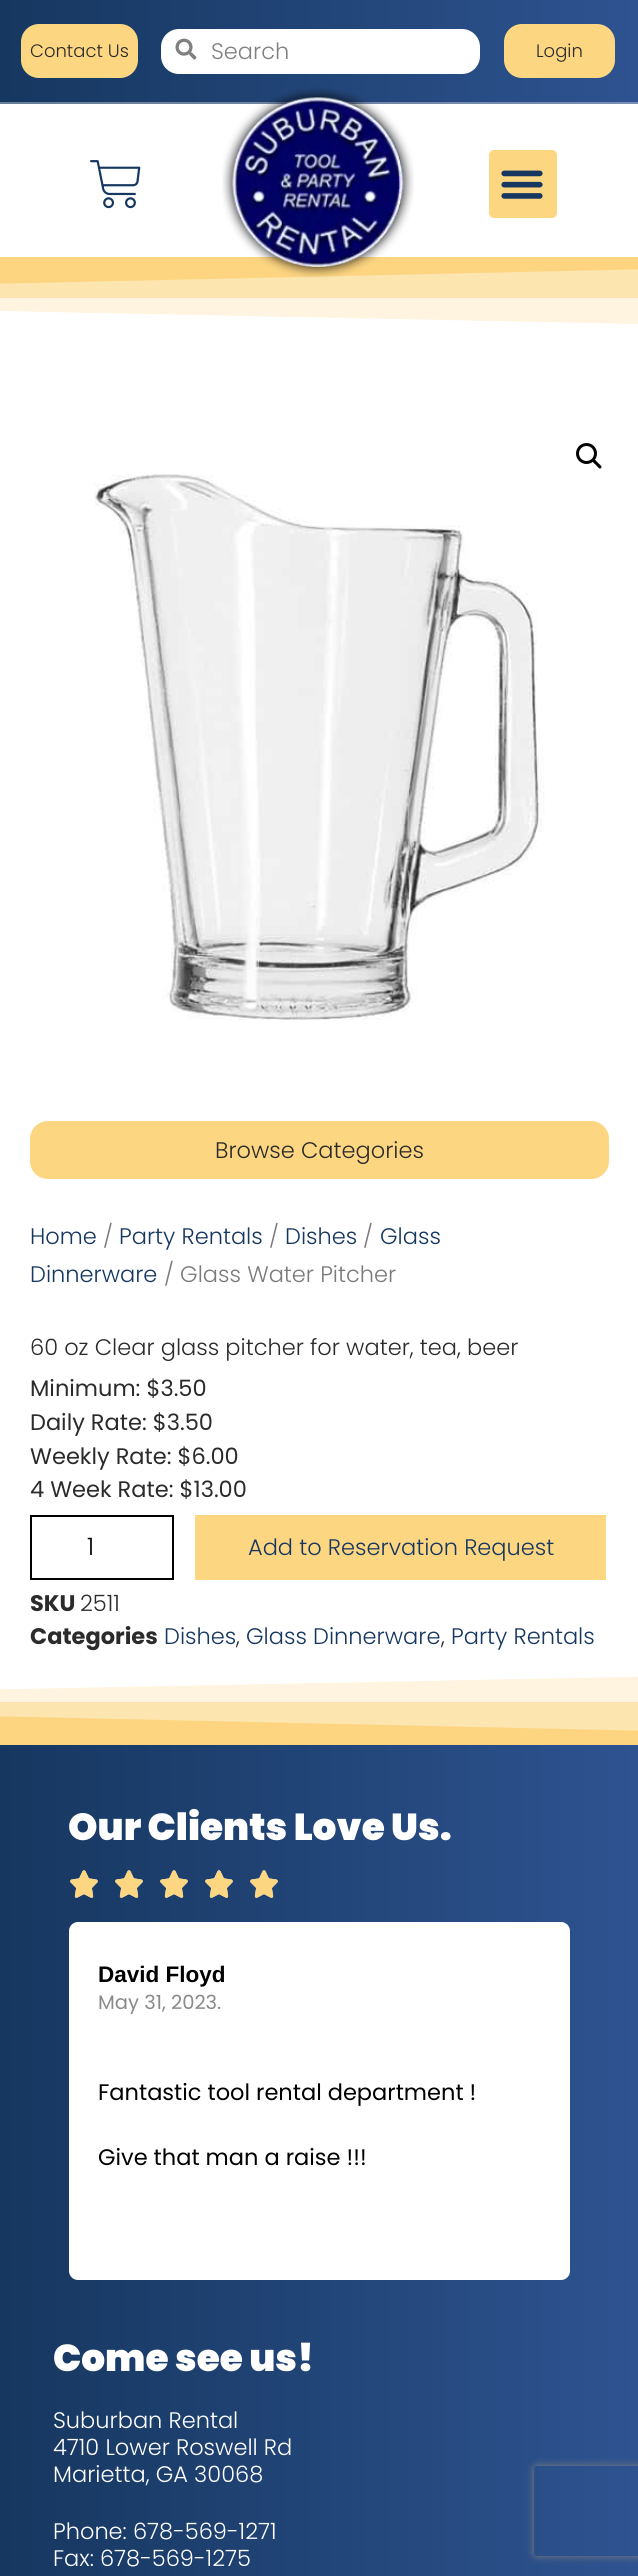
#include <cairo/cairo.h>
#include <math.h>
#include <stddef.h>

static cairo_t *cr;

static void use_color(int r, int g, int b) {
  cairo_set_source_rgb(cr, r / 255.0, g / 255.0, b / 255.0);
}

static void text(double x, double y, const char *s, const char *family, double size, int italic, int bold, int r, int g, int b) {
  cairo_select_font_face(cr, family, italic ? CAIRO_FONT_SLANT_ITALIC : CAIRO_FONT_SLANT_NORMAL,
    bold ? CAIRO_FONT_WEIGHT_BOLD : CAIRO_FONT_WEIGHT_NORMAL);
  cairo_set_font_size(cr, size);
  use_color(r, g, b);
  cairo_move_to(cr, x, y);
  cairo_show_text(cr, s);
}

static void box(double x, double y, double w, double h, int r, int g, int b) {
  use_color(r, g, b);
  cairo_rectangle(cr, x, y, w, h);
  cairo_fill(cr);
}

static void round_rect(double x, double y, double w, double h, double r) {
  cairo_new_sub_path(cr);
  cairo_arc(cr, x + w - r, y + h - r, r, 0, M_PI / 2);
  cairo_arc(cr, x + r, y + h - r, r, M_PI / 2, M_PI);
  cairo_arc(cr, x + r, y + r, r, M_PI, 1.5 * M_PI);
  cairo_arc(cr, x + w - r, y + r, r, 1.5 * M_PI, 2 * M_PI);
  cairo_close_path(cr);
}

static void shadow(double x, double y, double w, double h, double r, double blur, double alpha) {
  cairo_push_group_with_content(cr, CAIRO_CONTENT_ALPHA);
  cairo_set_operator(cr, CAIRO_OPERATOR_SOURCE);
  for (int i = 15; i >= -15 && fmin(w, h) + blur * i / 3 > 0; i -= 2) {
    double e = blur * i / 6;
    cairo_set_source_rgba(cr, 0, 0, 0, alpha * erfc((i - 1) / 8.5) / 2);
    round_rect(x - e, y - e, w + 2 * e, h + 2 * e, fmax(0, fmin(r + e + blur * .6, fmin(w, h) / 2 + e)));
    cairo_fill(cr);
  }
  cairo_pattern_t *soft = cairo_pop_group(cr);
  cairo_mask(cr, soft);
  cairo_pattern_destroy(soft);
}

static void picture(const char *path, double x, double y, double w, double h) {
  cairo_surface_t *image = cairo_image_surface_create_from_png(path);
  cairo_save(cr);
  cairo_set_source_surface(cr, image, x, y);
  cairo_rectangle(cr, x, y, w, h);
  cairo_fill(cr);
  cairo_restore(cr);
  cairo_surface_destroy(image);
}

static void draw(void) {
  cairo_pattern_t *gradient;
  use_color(255, 255, 255);
  cairo_paint(cr);
  box(0, 1702, 638, 29, 254, 235, 192);
  box(0, 269, 638, 29, 254, 235, 192);
  gradient = cairo_pattern_create_linear(0, 51, 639, 51);
  cairo_pattern_add_color_stop_rgba(gradient, 0, 0.086, 0.216, 0.376, 1);
  cairo_pattern_add_color_stop_rgba(gradient, 1, 0.18, 0.325, 0.565, 1);
  cairo_set_source(cr, gradient);
  cairo_pattern_destroy(gradient);
  cairo_rectangle(cr, 0, 0, 638, 102);
  cairo_fill(cr);
  gradient = cairo_pattern_create_linear(0, 51, 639, 51);
  cairo_pattern_add_color_stop_rgba(gradient, 0, 0.408, 0.49, 0.596, 1);
  cairo_pattern_add_color_stop_rgba(gradient, 1, 0.467, 0.561, 0.718, 1);
  cairo_set_source(cr, gradient);
  cairo_pattern_destroy(gradient);
  cairo_rectangle(cr, 0, 102, 638, 2);
  cairo_fill(cr);
  use_color(253, 214, 129);
  round_rect(21, 24, 117, 54, 18);
  cairo_fill(cr);
  use_color(255, 255, 255);
  round_rect(161, 29, 319, 45, 18);
  cairo_fill(cr);
  picture("img_01.png", 175, 38, 22, 22);
  use_color(253, 214, 129);
  round_rect(504, 24, 111, 54, 18);
  cairo_fill(cr);
  cairo_new_path(cr);
  cairo_move_to(cr, 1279, 255);
  cairo_line_to(cr, -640, 255);
  cairo_line_to(cr, -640, 298);
  cairo_close_path(cr);
  cairo_fill(cr);
  cairo_set_source_rgba(cr, 0.992, 0.839, 0.506, 0.25);
  cairo_new_path(cr);
  cairo_move_to(cr, -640, 255);
  cairo_line_to(cr, 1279, 255);
  cairo_line_to(cr, 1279, 337);
  cairo_line_to(cr, -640, 298);
  cairo_close_path(cr);
  cairo_fill(cr);
  box(0, 255, 638, 2, 255, 255, 255);
  picture("img_02.png", 90, 160, 51, 49);
  picture("img_03.png", 222, 87, 192, 191);
  use_color(253, 214, 129);
  round_rect(489, 150, 68, 68, 5);
  cairo_fill(cr);
  picture("img_04.png", 501, 170, 42, 29);
  cairo_arc(cr, 586.5, 453.5, 9, 0, 2 * M_PI);
  use_color(0, 0, 0);
  cairo_set_line_width(cr, 3);
  cairo_stroke(cr);
  cairo_new_path(cr);
  cairo_move_to(cr, 593, 459.5);
  cairo_curve_to(cr, 594.5, 458, 597, 462, 598, 463);
  cairo_curve_to(cr, 599, 464, 603, 466.5, 601, 468);
  cairo_curve_to(cr, 599.5, 470, 597, 466, 596, 465);
  cairo_curve_to(cr, 595, 464, 591, 461.5, 593, 459.5);
  cairo_close_path(cr);
  cairo_fill(cr);
  picture("img_05.png", 94, 474, 451, 546);
  use_color(253, 214, 129);
  round_rect(30, 1121, 579, 58, 18);
  cairo_fill(cr);
  cairo_rectangle(cr, 31, 1516, 142, 63);
  use_color(0, 0, 0);
  cairo_set_line_width(cr, 2);
  cairo_stroke(cr);
  box(195, 1515, 411, 65, 253, 214, 129);
  cairo_new_path(cr);
  cairo_move_to(cr, 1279, 1745);
  cairo_line_to(cr, -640, 1745);
  cairo_line_to(cr, -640, 1702);
  cairo_close_path(cr);
  cairo_fill(cr);
  cairo_set_source_rgba(cr, 0.992, 0.839, 0.506, 0.25);
  cairo_new_path(cr);
  cairo_move_to(cr, -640, 1745);
  cairo_line_to(cr, 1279, 1745);
  cairo_line_to(cr, 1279, 1664);
  cairo_line_to(cr, -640, 1702);
  cairo_close_path(cr);
  cairo_fill(cr);
  gradient = cairo_pattern_create_linear(0, 2330, 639, 2330);
  cairo_pattern_add_color_stop_rgba(gradient, 0, 0.086, 0.216, 0.376, 1);
  cairo_pattern_add_color_stop_rgba(gradient, 1, 0.18, 0.325, 0.565, 1);
  cairo_set_source(cr, gradient);
  cairo_pattern_destroy(gradient);
  cairo_rectangle(cr, 0, 1745, 638, 831);
  cairo_fill(cr);
  picture("img_06.png", 70, 1870, 28, 28);
  picture("img_07.png", 70, 1870, 28, 28);
  picture("img_08.png", 115, 1870, 28, 28);
  picture("img_09.png", 115, 1870, 28, 28);
  picture("img_10.png", 160, 1870, 28, 28);
  picture("img_11.png", 160, 1870, 28, 28);
  picture("img_12.png", 205, 1870, 28, 28);
  picture("img_13.png", 205, 1870, 28, 28);
  picture("img_14.png", 250, 1870, 28, 28);
  picture("img_15.png", 250, 1870, 28, 28);
  use_color(255, 255, 255);
  round_rect(69, 1922, 501, 358, 9);
  cairo_fill(cr);
  cairo_save(cr);
  cairo_set_fill_rule(cr, CAIRO_FILL_RULE_EVEN_ODD);
  cairo_new_path(cr);
  cairo_move_to(cr, 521, 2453);
  cairo_line_to(cr, 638, 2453);
  cairo_line_to(cr, 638, 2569);
  cairo_line_to(cr, 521, 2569);
  cairo_close_path(cr);
  cairo_move_to(cr, 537, 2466);
  cairo_line_to(cr, 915, 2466);
  cairo_curve_to(cr, 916.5, 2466, 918, 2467.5, 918, 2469);
  cairo_line_to(cr, 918, 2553);
  cairo_curve_to(cr, 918, 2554.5, 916.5, 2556, 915, 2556);
  cairo_line_to(cr, 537, 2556);
  cairo_curve_to(cr, 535.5, 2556, 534, 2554.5, 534, 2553);
  cairo_line_to(cr, 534, 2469);
  cairo_curve_to(cr, 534, 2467.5, 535.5, 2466, 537, 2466);
  cairo_close_path(cr);
  cairo_clip(cr);
  use_color(128, 128, 128);
  shadow(534, 2466, 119, 90, 3, 4, 1);
  cairo_restore(cr);
  text(30, 57, "Contact Us", "Poppins Light", 18, 0, 0, 43, 43, 43);
  text(211, 59, "Search", "Poppins Light", 22.5, 0, 0, 128, 128, 128);
  text(536, 57, "Login", "Poppins Light", 18, 0, 0, 43, 43, 43);
  text(215, 1158, "Browse Categories", "Poppins Light", 22.5, 0, 0, 43, 43, 43);
  text(30, 1244, "Home", "Poppins Light", 22.5, 0, 0, 22, 55, 96);
  text(103, 1244, "/", "Poppins Light", 22.5, 0, 0, 122, 122, 122);
  text(119, 1244, "Party Rentals", "Poppins Light", 22.5, 0, 0, 22, 55, 96);
  text(269, 1244, "/", "Poppins Light", 22.5, 0, 0, 122, 122, 122);
  text(285, 1244, "Dishes", "Poppins Light", 22.5, 0, 0, 22, 55, 96);
  text(363, 1244, "/", "Poppins Light", 22.5, 0, 0, 122, 122, 122);
  text(380, 1244, "Glass", "Poppins Light", 22.5, 0, 0, 22, 55, 96);
  text(30, 1282, "Dinnerware", "Poppins Light", 22.5, 0, 0, 22, 55, 96);
  text(164, 1282, "/ Glass Water Pitcher", "Poppins Light", 22.5, 0, 0, 122, 122, 122);
  text(30, 1355, "60 oz Clear glass pitcher for water, tea, beer", "Poppins Light", 22.5, 0, 0, 43, 43, 43);
  text(30, 1396, "Minimum: $3.50", "Poppins", 22.5, 0, 0, 43, 43, 43);
  text(30, 1430, "Daily Rate: $3.50", "Poppins", 22.5, 0, 0, 43, 43, 43);
  text(30, 1464, "Weekly Rate: $6.00", "Poppins", 22.5, 0, 0, 43, 43, 43);
  text(30, 1497, "4 Week Rate: $13.00", "Poppins", 22.5, 0, 0, 43, 43, 43);
  text(87, 1555, "1", "Poppins Light", 24, 0, 0, 0, 0, 0);
  text(248, 1555, "Add to Reservation Request", "Poppins Light", 22.5, 0, 0, 22, 55, 96);
  text(30, 1611, "SKU", "Poppins", 22.5, 0, 1, 43, 43, 43);
  text(80, 1611, "2511", "Poppins Light", 22.5, 0, 0, 43, 43, 43);
  text(30, 1644, "Categories", "Poppins", 22.5, 0, 1, 43, 43, 43);
  text(164, 1644, "Dishes", "Poppins Light", 22.5, 0, 0, 22, 55, 96);
  text(236, 1644, ",", "Poppins Light", 22.5, 0, 0, 43, 43, 43);
  text(246, 1644, "Glass Dinnerware", "Poppins Light", 22.5, 0, 0, 22, 55, 96);
  text(441, 1644, ",", "Poppins Light", 22.5, 0, 0, 43, 43, 43);
  text(451, 1644, "Party Rentals", "Poppins Light", 22.5, 0, 0, 22, 55, 96);
  text(68, 1840, "Our Clients Love Us.", "Poppins Black", 37.5, 0, 0, 255, 255, 255);
  text(98, 1982, "David Floyd", "Liberation Sans", 22.5, 0, 1, 0, 0, 0);
  text(98, 2009, "May 31, 2023.", "Poppins", 19.5, 0, 0, 138, 138, 138);
  text(98, 2100, "Fantastic tool rental department !", "Poppins", 22.5, 0, 0, 0, 0, 0);
  text(98, 2165, "Give that man a raise !!!", "Poppins", 22.5, 0, 0, 0, 0, 0);
  text(53, 2371, "Come see us!", "Poppins Black", 37.5, 0, 0, 255, 255, 255);
  text(53, 2428, "Suburban Rental", "Poppins Light", 22.5, 0, 0, 255, 255, 255);
  text(53, 2455, "4710 Lower Roswell Rd", "Poppins Light", 22.5, 0, 0, 255, 255, 255);
  text(53, 2482, "Marietta, GA 30068", "Poppins Light", 22.5, 0, 0, 255, 255, 255);
  text(53, 2539, "Phone: 678-569-1271", "Poppins Light", 22.5, 0, 0, 255, 255, 255);
  text(53, 2566, "Fax: 678-569-1275", "Poppins Light", 22.5, 0, 0, 255, 255, 255);
}

int main(void) {
  cairo_surface_t *surface = cairo_image_surface_create(CAIRO_FORMAT_RGB24, 638, 2576);
  cr = cairo_create(surface);
  cairo_font_options_t *options = cairo_font_options_create();
  cairo_font_options_set_hint_metrics(options, CAIRO_HINT_METRICS_OFF);
  cairo_font_options_set_hint_style(options, CAIRO_HINT_STYLE_NONE);
  cairo_set_font_options(cr, options);
  cairo_set_miter_limit(cr, 4);
  draw();
  cairo_surface_write_to_png(surface, "out.png");
  cairo_font_options_destroy(options);
  cairo_destroy(cr);
  cairo_surface_destroy(surface);
  return 0;
}
